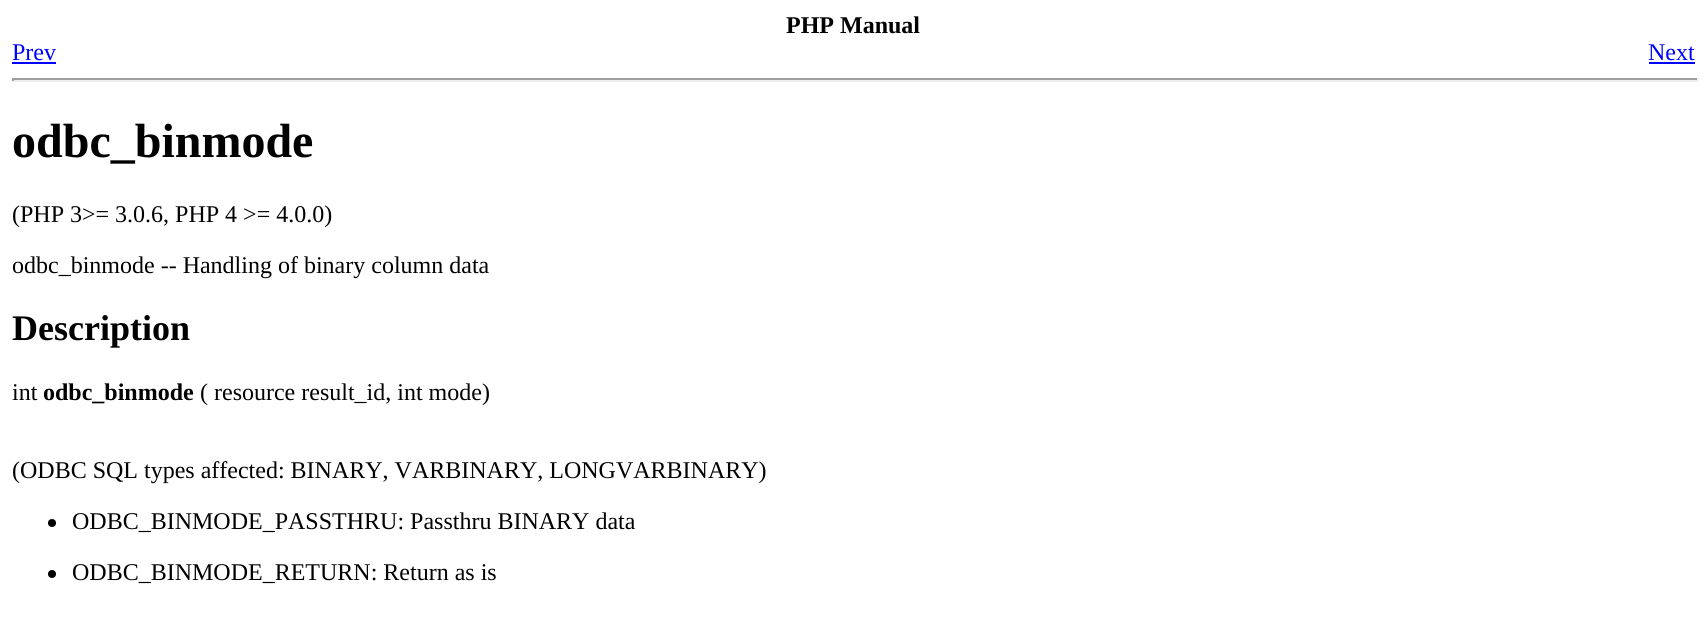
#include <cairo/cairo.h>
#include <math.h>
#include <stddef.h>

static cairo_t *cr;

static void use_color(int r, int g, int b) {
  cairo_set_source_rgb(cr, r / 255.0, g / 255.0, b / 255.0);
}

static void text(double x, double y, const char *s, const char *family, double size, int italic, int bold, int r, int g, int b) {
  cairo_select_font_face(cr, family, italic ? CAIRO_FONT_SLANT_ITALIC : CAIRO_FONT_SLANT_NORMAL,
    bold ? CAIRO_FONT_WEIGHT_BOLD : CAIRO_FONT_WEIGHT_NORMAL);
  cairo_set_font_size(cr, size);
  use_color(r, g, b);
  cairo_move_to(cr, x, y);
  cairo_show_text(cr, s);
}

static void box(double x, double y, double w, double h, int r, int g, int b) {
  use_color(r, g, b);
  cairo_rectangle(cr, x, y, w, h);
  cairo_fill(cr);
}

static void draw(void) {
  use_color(255, 255, 255);
  cairo_paint(cr);
  box(12, 62, 44, 2, 0, 0, 255);
  box(1649, 62, 46, 2, 0, 0, 255);
  box(12, 78, 1686, 2, 159, 159, 159);
  box(1697, 78, 2, 3, 238, 238, 238);
  box(12, 80, 1686, 2, 238, 238, 238);
  box(12, 78, 2, 3, 159, 159, 159);
  use_color(0, 0, 0);
  cairo_arc(cr, 52, 523, 4, 0, 2 * M_PI);
  cairo_fill(cr);
  cairo_arc(cr, 52, 574, 4, 0, 2 * M_PI);
  cairo_fill(cr);
  text(786, 33, "PHP Manual", "Liberation Serif", 24, 0, 1, 0, 0, 0);
  text(12, 60, "Prev", "Liberation Serif", 24, 0, 0, 0, 0, 255);
  text(1648, 60, "Next", "Liberation Serif", 24, 0, 0, 0, 0, 255);
  text(12, 157, "odbc_binmode", "Liberation Serif", 48, 0, 1, 0, 0, 0);
  text(12, 222, "(PHP 3>= 3.0.6, PHP 4 >= 4.0.0)", "Liberation Serif", 24, 0, 0, 0, 0, 0);
  text(12, 273, "odbc_binmode -- Handling of binary column data", "Liberation Serif", 24, 0, 0, 0, 0, 0);
  text(12, 340, "Description", "Liberation Serif", 36, 0, 1, 0, 0, 0);
  text(12, 400, "int", "Liberation Serif", 24, 0, 0, 0, 0, 0);
  text(43, 400, "odbc_binmode", "Liberation Serif", 24, 0, 1, 0, 0, 0);
  text(200, 400, "( resource result_id, int mode)", "Liberation Serif", 24, 0, 0, 0, 0, 0);
  text(12, 478, "(ODBC SQL types affected: BINARY, VARBINARY, LONGVARBINARY)", "Liberation Serif", 24, 0, 0, 0, 0, 0);
  text(72, 529, "ODBC_BINMODE_PASSTHRU: Passthru BINARY data", "Liberation Serif", 24, 0, 0, 0, 0, 0);
  text(72, 580, "ODBC_BINMODE_RETURN: Return as is", "Liberation Serif", 24, 0, 0, 0, 0, 0);
}

int main(void) {
  cairo_surface_t *surface = cairo_image_surface_create(CAIRO_FORMAT_RGB24, 1706, 619);
  cr = cairo_create(surface);
  cairo_font_options_t *options = cairo_font_options_create();
  cairo_font_options_set_hint_metrics(options, CAIRO_HINT_METRICS_OFF);
  cairo_font_options_set_hint_style(options, CAIRO_HINT_STYLE_NONE);
  cairo_set_font_options(cr, options);
  cairo_set_miter_limit(cr, 4);
  draw();
  cairo_surface_write_to_png(surface, "out.png");
  cairo_font_options_destroy(options);
  cairo_destroy(cr);
  cairo_surface_destroy(surface);
  return 0;
}
